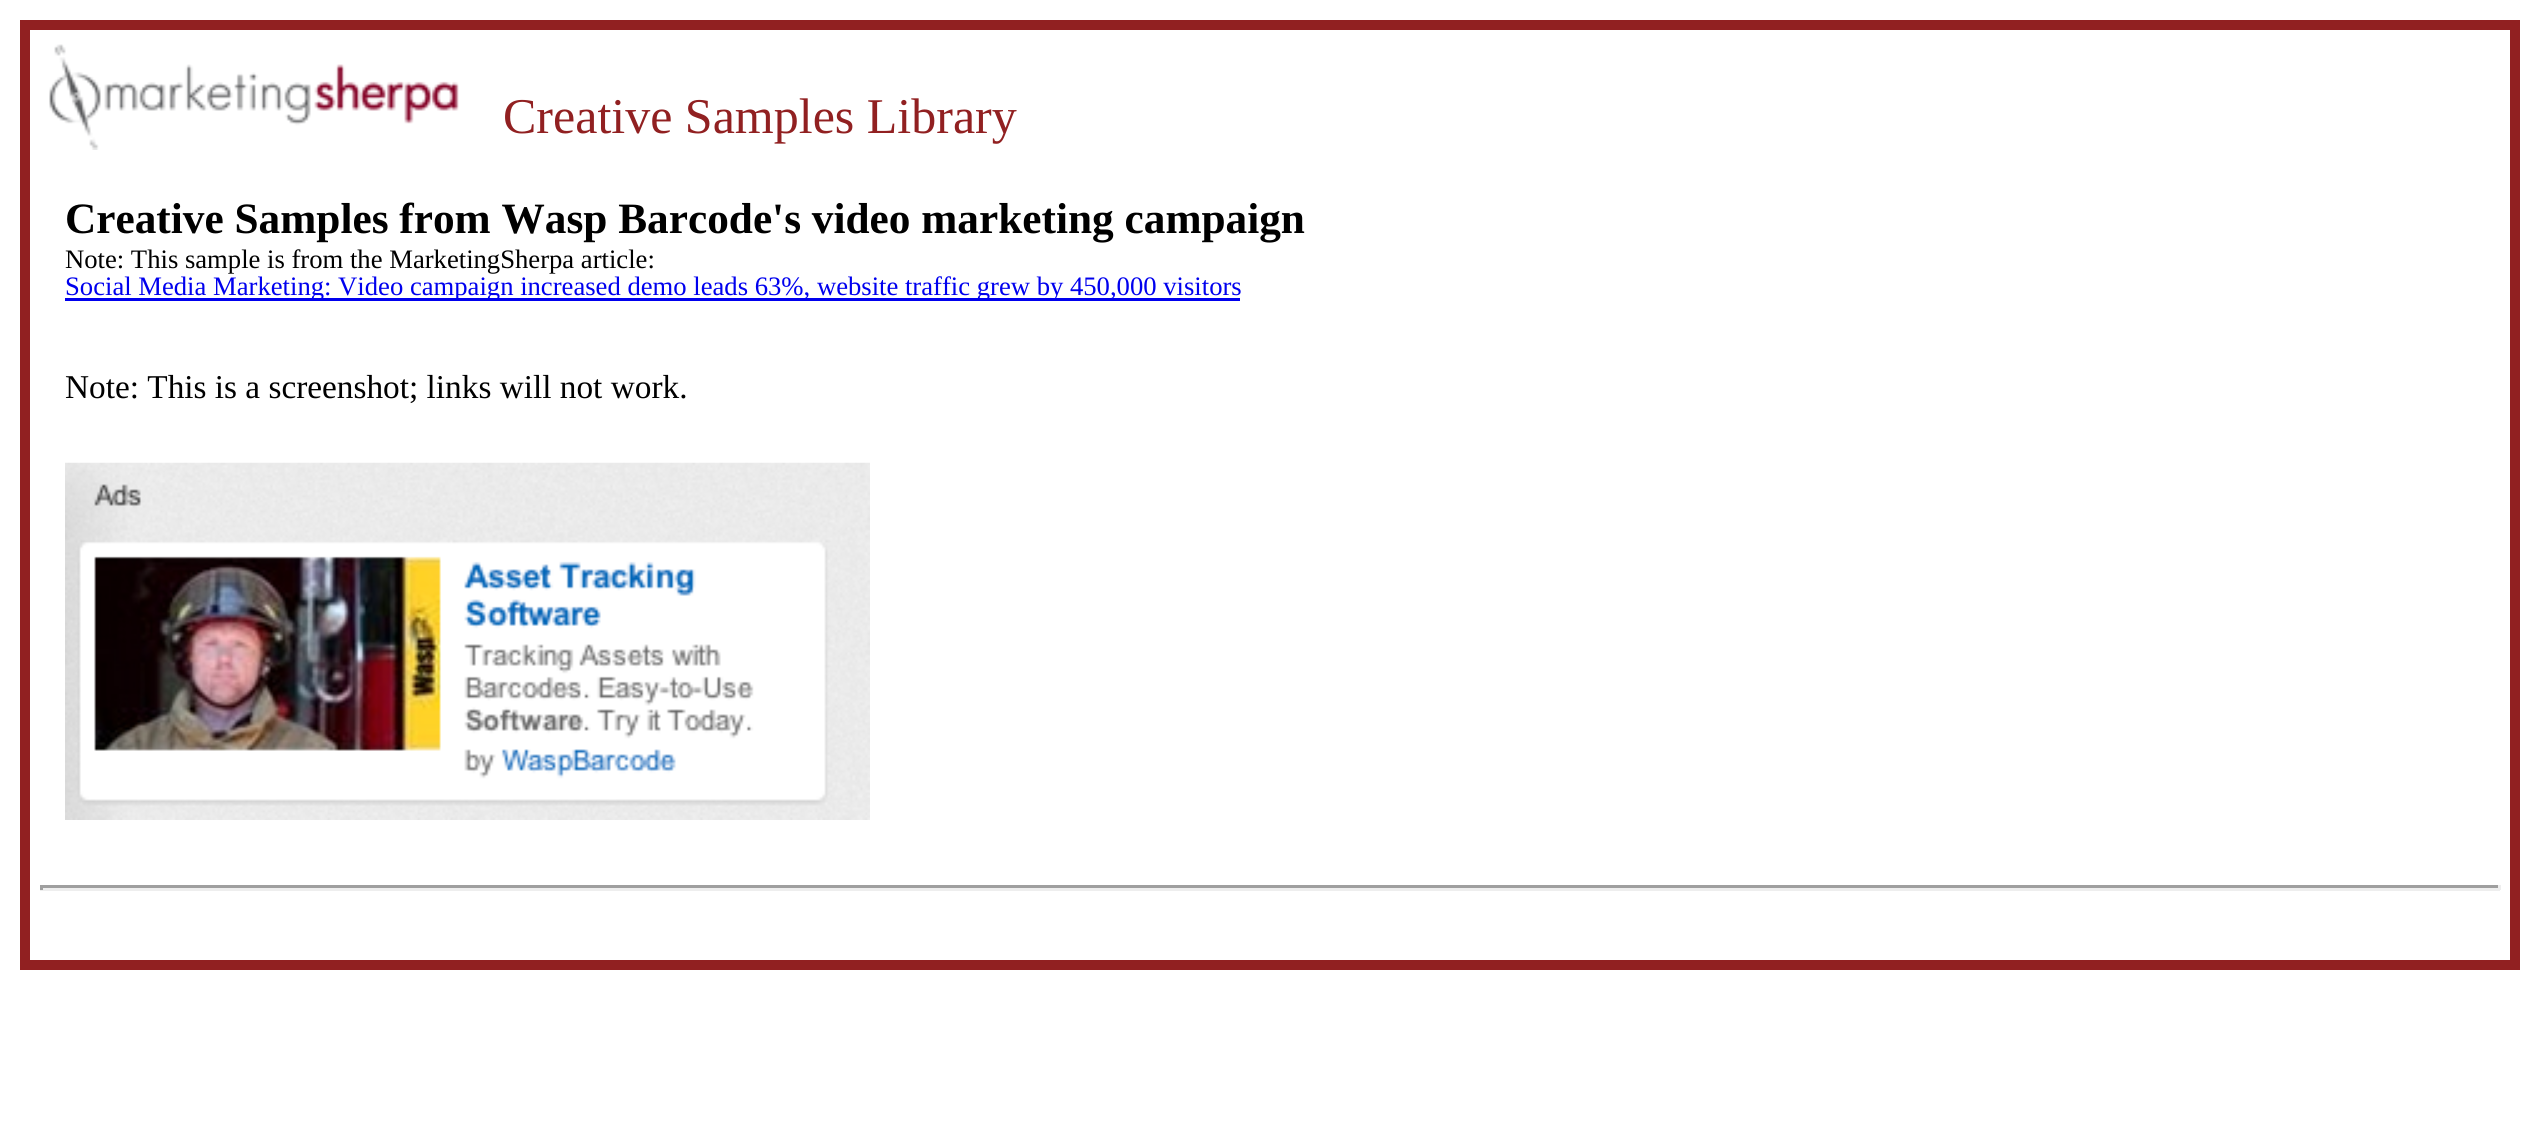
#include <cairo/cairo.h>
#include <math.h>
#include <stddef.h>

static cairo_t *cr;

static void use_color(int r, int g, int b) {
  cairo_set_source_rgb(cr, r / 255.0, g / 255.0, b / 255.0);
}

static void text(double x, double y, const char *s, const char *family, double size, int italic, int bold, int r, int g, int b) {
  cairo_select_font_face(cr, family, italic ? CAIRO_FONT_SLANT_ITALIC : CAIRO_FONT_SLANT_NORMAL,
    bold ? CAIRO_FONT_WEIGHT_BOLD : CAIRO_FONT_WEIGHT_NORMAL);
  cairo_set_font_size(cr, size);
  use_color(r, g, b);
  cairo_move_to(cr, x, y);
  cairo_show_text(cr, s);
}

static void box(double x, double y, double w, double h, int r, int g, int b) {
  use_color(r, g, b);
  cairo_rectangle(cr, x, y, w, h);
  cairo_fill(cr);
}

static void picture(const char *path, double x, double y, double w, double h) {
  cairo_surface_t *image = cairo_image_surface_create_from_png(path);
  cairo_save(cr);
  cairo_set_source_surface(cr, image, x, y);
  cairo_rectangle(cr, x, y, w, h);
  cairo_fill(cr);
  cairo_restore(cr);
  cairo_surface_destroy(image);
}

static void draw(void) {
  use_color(255, 255, 255);
  cairo_paint(cr);
  box(20, 20, 2500, 950, 145, 32, 33);
  box(30, 30, 2480, 930, 255, 255, 255);
  picture("img_01.png", 49, 44, 410, 106);
  box(65, 298, 1175, 3, 0, 0, 238);
  picture("img_02.png", 65, 462, 805, 358);
  box(40, 885, 2460, 3, 159, 159, 159);
  box(2498, 885, 3, 5, 238, 238, 238);
  box(40, 888, 2460, 3, 238, 238, 238);
  box(40, 885, 3, 5, 159, 159, 159);
  text(503, 133, "Creative Samples Library", "Liberation Serif", 50, 0, 0, 145, 32, 33);
  text(65, 233, "Creative Samples from Wasp Barcode's video marketing campaign", "Liberation Serif", 43.3, 0, 1, 0, 0, 0);
  text(65, 268, "Note: This sample is from the MarketingSherpa article:", "Liberation Serif", 26.65, 0, 0, 0, 0, 0);
  text(65, 295, "Social Media Marketing: Video campaign increased demo leads 63%, website traffic grew by 450,000 visitors", "Liberation Serif", 26.65, 0, 0, 0, 0, 238);
  text(65, 398, "Note: This is a screenshot; links will not work.", "Liberation Serif", 33.3, 0, 0, 0, 0, 0);
}

int main(void) {
  cairo_surface_t *surface = cairo_image_surface_create(CAIRO_FORMAT_RGB24, 2540, 1140);
  cr = cairo_create(surface);
  cairo_font_options_t *options = cairo_font_options_create();
  cairo_font_options_set_hint_metrics(options, CAIRO_HINT_METRICS_OFF);
  cairo_font_options_set_hint_style(options, CAIRO_HINT_STYLE_NONE);
  cairo_set_font_options(cr, options);
  cairo_set_miter_limit(cr, 4);
  draw();
  cairo_surface_write_to_png(surface, "out.png");
  cairo_font_options_destroy(options);
  cairo_destroy(cr);
  cairo_surface_destroy(surface);
  return 0;
}
